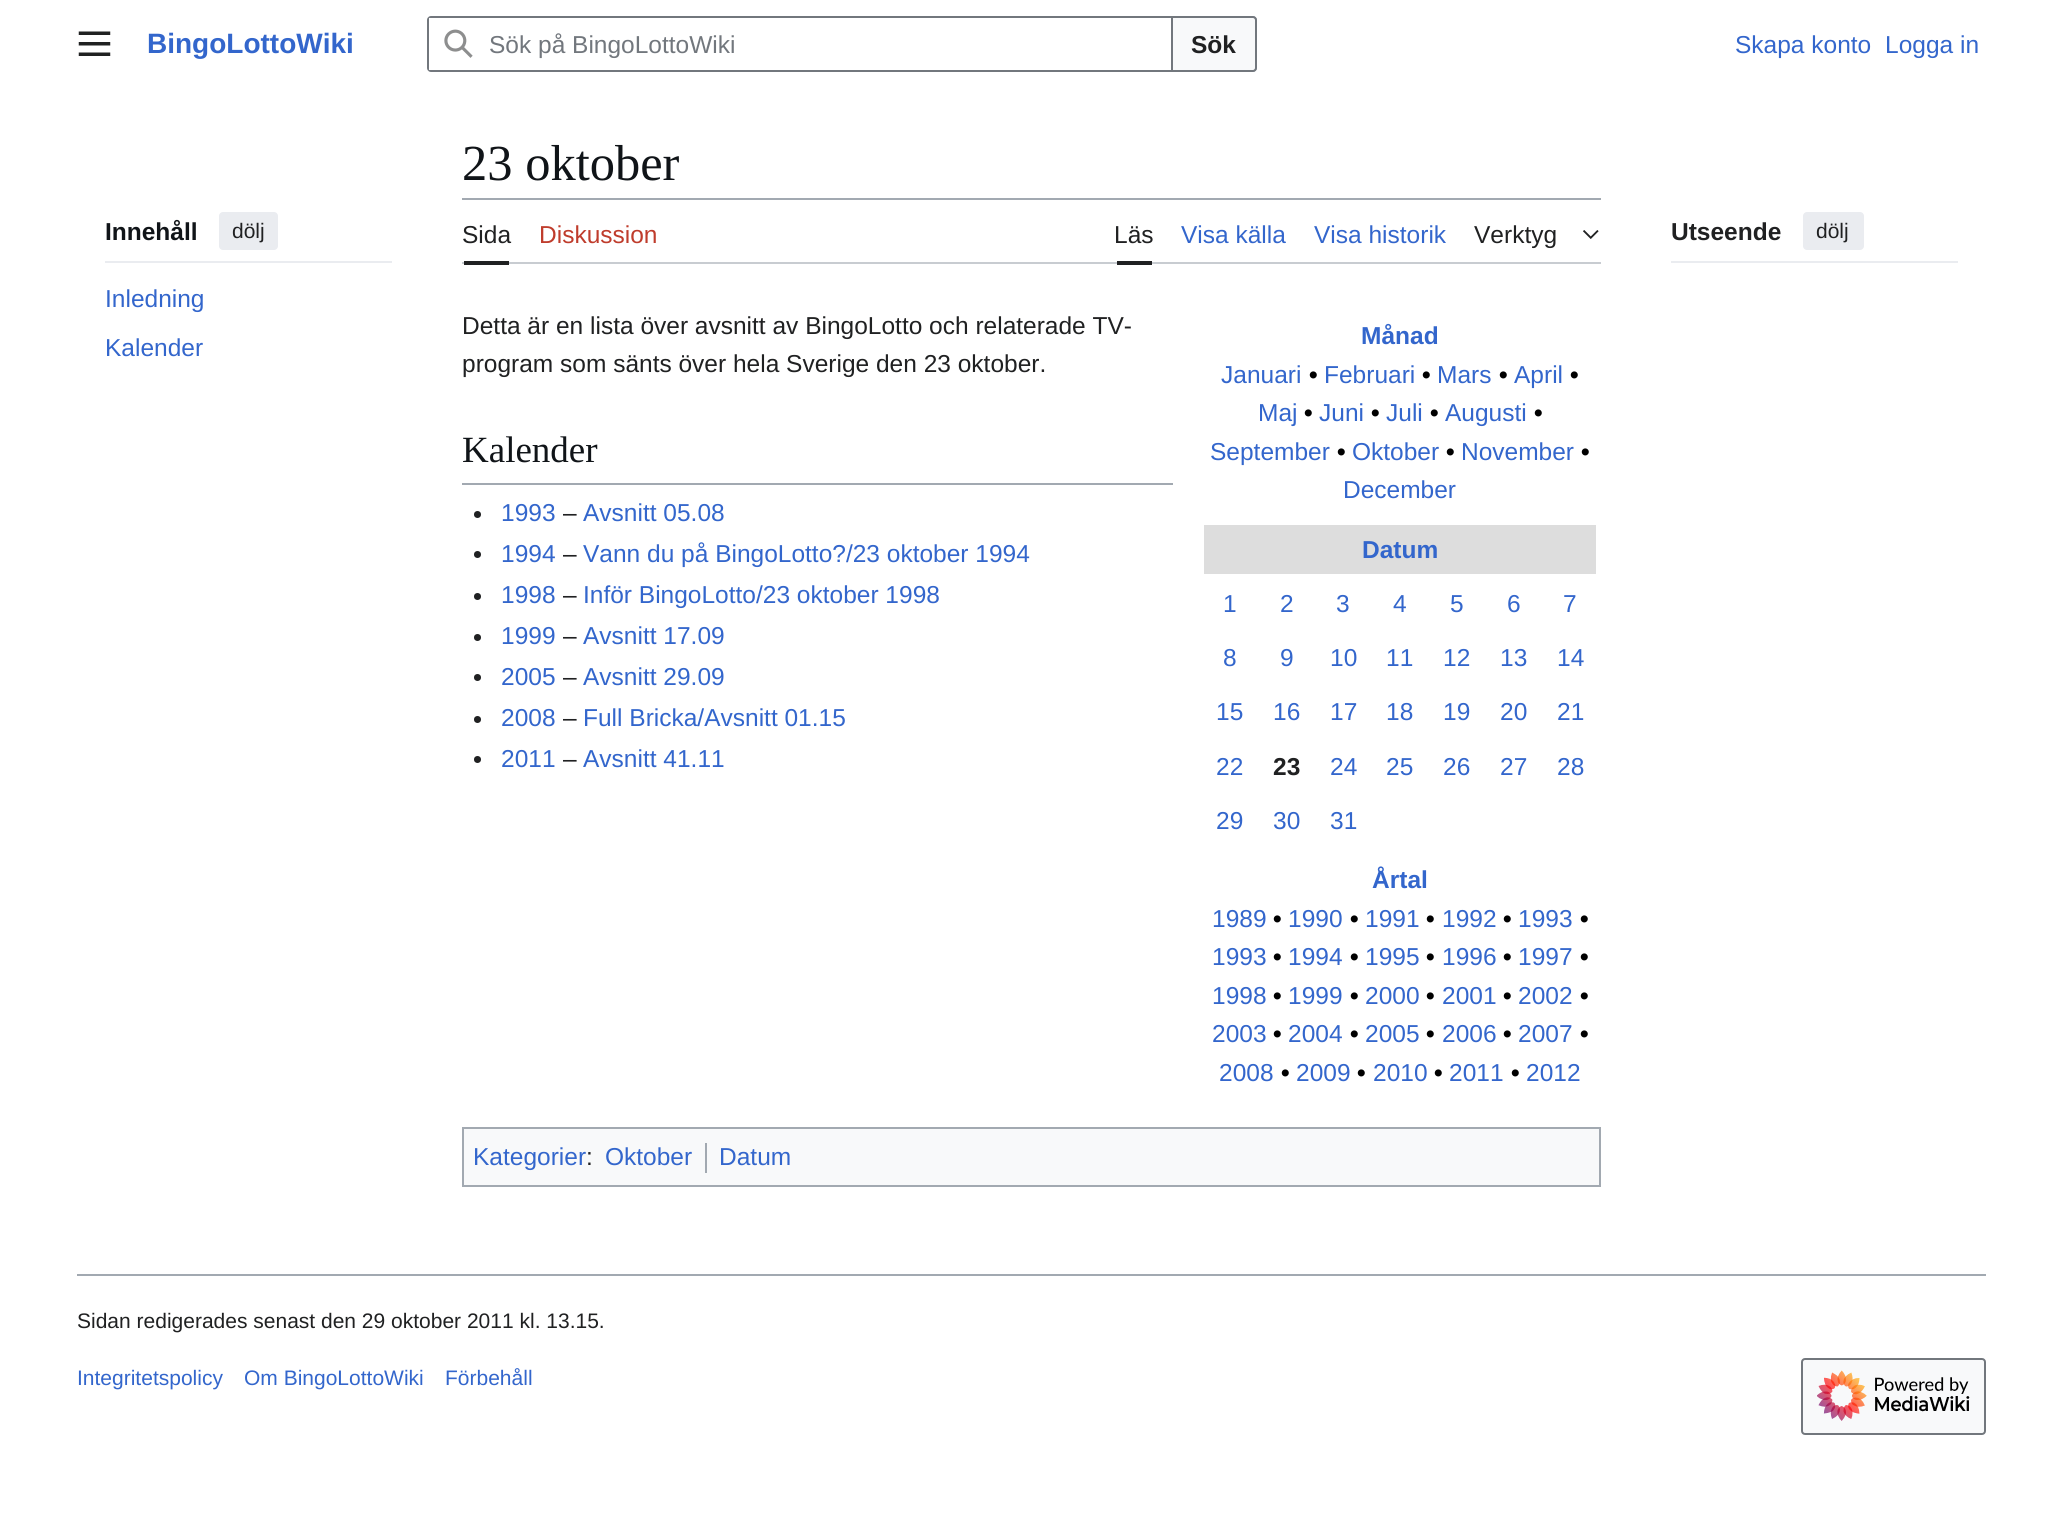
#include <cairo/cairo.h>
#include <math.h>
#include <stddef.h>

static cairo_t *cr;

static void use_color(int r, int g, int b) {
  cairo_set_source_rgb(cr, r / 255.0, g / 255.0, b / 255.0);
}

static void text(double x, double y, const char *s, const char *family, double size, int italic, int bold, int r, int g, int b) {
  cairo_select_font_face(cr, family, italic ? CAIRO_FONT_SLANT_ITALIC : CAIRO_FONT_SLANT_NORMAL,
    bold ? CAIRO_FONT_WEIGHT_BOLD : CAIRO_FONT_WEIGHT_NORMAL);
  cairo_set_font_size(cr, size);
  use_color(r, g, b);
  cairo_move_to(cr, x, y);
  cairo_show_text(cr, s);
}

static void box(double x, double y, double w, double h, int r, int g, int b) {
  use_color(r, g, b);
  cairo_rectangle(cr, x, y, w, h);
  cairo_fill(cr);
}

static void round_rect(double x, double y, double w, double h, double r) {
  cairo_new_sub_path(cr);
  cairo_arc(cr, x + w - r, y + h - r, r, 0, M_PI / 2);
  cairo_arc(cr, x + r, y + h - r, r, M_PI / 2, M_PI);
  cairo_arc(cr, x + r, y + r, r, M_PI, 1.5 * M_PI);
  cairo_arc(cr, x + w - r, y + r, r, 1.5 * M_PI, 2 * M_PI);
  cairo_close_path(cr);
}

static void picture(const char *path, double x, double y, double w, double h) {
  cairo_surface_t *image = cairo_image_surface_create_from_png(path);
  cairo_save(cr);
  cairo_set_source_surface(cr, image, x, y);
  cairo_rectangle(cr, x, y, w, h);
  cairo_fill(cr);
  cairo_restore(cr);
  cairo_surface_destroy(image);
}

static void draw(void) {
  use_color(255, 255, 255);
  cairo_paint(cr);
  picture("img_01.png", 78, 31, 33, 25);
  round_rect(428, 17, 828, 54, 3);
  use_color(162, 169, 177);
  cairo_stroke(cr);
  use_color(248, 249, 250);
  cairo_new_path(cr);
  cairo_move_to(cr, 1172, 17);
  cairo_line_to(cr, 1253, 17);
  cairo_curve_to(cr, 1254.5, 17, 1256, 18.5, 1256, 20);
  cairo_line_to(cr, 1256, 68);
  cairo_curve_to(cr, 1256, 69.5, 1254.5, 71, 1253, 71);
  cairo_line_to(cr, 1172, 71);
  cairo_close_path(cr);
  cairo_fill_preserve(cr);
  use_color(114, 119, 125);
  cairo_stroke(cr);
  use_color(255, 255, 255);
  cairo_new_path(cr);
  cairo_move_to(cr, 431, 16);
  cairo_line_to(cr, 1173, 16);
  cairo_line_to(cr, 1173, 72);
  cairo_line_to(cr, 431, 72);
  cairo_curve_to(cr, 429, 72, 427, 70, 427, 68);
  cairo_line_to(cr, 427, 20);
  cairo_curve_to(cr, 427, 18, 429, 16, 431, 16);
  cairo_close_path(cr);
  cairo_fill(cr);
  use_color(114, 119, 125);
  cairo_set_fill_rule(cr, CAIRO_FILL_RULE_EVEN_ODD);
  cairo_new_path(cr);
  cairo_move_to(cr, 431, 16);
  cairo_curve_to(cr, 429, 16, 427, 18, 427, 20);
  cairo_line_to(cr, 427, 68);
  cairo_curve_to(cr, 427, 70, 429, 72, 431, 72);
  cairo_line_to(cr, 1173, 72);
  cairo_line_to(cr, 1173, 16);
  cairo_close_path(cr);
  cairo_move_to(cr, 429, 18);
  cairo_line_to(cr, 429, 70);
  cairo_line_to(cr, 1171, 70);
  cairo_line_to(cr, 1171, 18);
  cairo_close_path(cr);
  cairo_fill(cr);
  picture("img_02.png", 444, 29, 29, 29);
  box(105, 261, 287, 2, 234, 236, 240);
  round_rect(219, 212, 59, 38, 4);
  cairo_fill(cr);
  box(462, 198, 1139, 2, 162, 169, 177);
  box(462, 262, 1139, 2, 200, 204, 209);
  box(464, 261, 45, 4, 32, 33, 34);
  box(1117, 261, 35, 4, 32, 33, 34);
  picture("img_03.png", 1583, 230, 16, 9);
  box(1671, 261, 287, 2, 234, 236, 240);
  round_rect(1803, 212, 61, 38, 4);
  cairo_fill(cr);
  box(1204, 525, 392, 49, 221, 221, 221);
  box(462, 483, 711, 2, 162, 169, 177);
  use_color(32, 33, 34);
  cairo_arc(cr, 477.5, 514.5, 3.5, 0, 2 * M_PI);
  cairo_fill(cr);
  cairo_arc(cr, 477.5, 554.5, 3.5, 0, 2 * M_PI);
  cairo_fill(cr);
  cairo_arc(cr, 477.5, 596.5, 3.5, 0, 2 * M_PI);
  cairo_fill(cr);
  cairo_arc(cr, 477.5, 637.5, 3.5, 0, 2 * M_PI);
  cairo_fill(cr);
  cairo_arc(cr, 477.5, 677.5, 3.5, 0, 2 * M_PI);
  cairo_fill(cr);
  cairo_arc(cr, 477.5, 719.5, 3.5, 0, 2 * M_PI);
  cairo_fill(cr);
  cairo_arc(cr, 477.5, 759.5, 3.5, 0, 2 * M_PI);
  cairo_fill(cr);
  use_color(248, 249, 250);
  cairo_rectangle(cr, 463, 1128, 1137, 58);
  cairo_fill_preserve(cr);
  use_color(162, 169, 177);
  cairo_stroke(cr);
  box(705, 1143, 2, 30, 162, 169, 177);
  box(77, 1274, 1909, 2, 162, 169, 177);
  use_color(248, 249, 250);
  round_rect(1802, 1359, 183, 75, 3);
  cairo_fill_preserve(cr);
  use_color(114, 119, 125);
  cairo_stroke(cr);
  picture("img_04.png", 1817, 1370, 153, 51);
  text(147, 53, "BingoLottoWiki", "Liberation Sans", 28, 0, 1, 51, 102, 204);
  text(489, 53, "Sök på BingoLottoWiki", "Liberation Sans", 24.5, 0, 0, 114, 119, 125);
  text(1191, 53, "Sök", "Liberation Sans", 24.5, 0, 1, 32, 33, 34);
  text(1735, 53, "Skapa konto", "Liberation Sans", 24.5, 0, 0, 51, 102, 204);
  text(1885, 53, "Logga in", "Liberation Sans", 24.5, 0, 0, 51, 102, 204);
  text(105, 240, "Innehåll", "Liberation Sans", 24.5, 0, 1, 16, 20, 24);
  text(232, 238, "dölj", "Liberation Sans", 21, 0, 0, 32, 33, 34);
  text(105, 307, "Inledning", "Liberation Sans", 24.5, 0, 0, 51, 102, 204);
  text(105, 356, "Kalender", "Liberation Sans", 24.5, 0, 0, 51, 102, 204);
  text(462, 180, "23 oktober", "Liberation Serif", 50.5, 0, 0, 16, 20, 24);
  text(462, 243, "Sida", "Liberation Sans", 24.5, 0, 0, 32, 33, 34);
  text(539, 243, "Diskussion", "Liberation Sans", 24.5, 0, 0, 191, 60, 44);
  text(1114, 243, "Läs", "Liberation Sans", 24.5, 0, 0, 32, 33, 34);
  text(1181, 243, "Visa källa", "Liberation Sans", 24.5, 0, 0, 51, 102, 204);
  text(1314, 243, "Visa historik", "Liberation Sans", 24.5, 0, 0, 51, 102, 204);
  text(1474, 243, "Verktyg", "Liberation Sans", 24.5, 0, 0, 32, 33, 34);
  text(1671, 240, "Utseende", "Liberation Sans", 24.5, 0, 1, 32, 33, 34);
  text(1816, 238, "dölj", "Liberation Sans", 21, 0, 0, 32, 33, 34);
  text(462, 334, "Detta är en lista över avsnitt av BingoLotto och relaterade TV-", "Liberation Sans", 24.5, 0, 0, 32, 33, 34);
  text(462, 372, "program som sänts över hela Sverige den 23 oktober.", "Liberation Sans", 24.5, 0, 0, 32, 33, 34);
  text(1361, 344, "Månad", "Liberation Sans", 24.5, 0, 1, 51, 102, 204);
  text(1221, 383, "Januari", "Liberation Sans", 24.5, 0, 0, 51, 102, 204);
  text(1309, 383, "•", "Liberation Sans", 24.5, 0, 1, 0, 0, 0);
  text(1324, 383, "Februari", "Liberation Sans", 24.5, 0, 0, 51, 102, 204);
  text(1422, 383, "•", "Liberation Sans", 24.5, 0, 1, 0, 0, 0);
  text(1437, 383, "Mars", "Liberation Sans", 24.5, 0, 0, 51, 102, 204);
  text(1499, 383, "•", "Liberation Sans", 24.5, 0, 1, 0, 0, 0);
  text(1514, 383, "April", "Liberation Sans", 24.5, 0, 0, 51, 102, 204);
  text(1570, 383, "•", "Liberation Sans", 24.5, 0, 1, 0, 0, 0);
  text(1258, 421, "Maj", "Liberation Sans", 24.5, 0, 0, 51, 102, 204);
  text(1304, 421, "•", "Liberation Sans", 24.5, 0, 1, 0, 0, 0);
  text(1319, 421, "Juni", "Liberation Sans", 24.5, 0, 0, 51, 102, 204);
  text(1371, 421, "•", "Liberation Sans", 24.5, 0, 1, 0, 0, 0);
  text(1386, 421, "Juli", "Liberation Sans", 24.5, 0, 0, 51, 102, 204);
  text(1430, 421, "•", "Liberation Sans", 24.5, 0, 1, 0, 0, 0);
  text(1445, 421, "Augusti", "Liberation Sans", 24.5, 0, 0, 51, 102, 204);
  text(1534, 421, "•", "Liberation Sans", 24.5, 0, 1, 0, 0, 0);
  text(1210, 460, "September", "Liberation Sans", 24.5, 0, 0, 51, 102, 204);
  text(1337, 460, "•", "Liberation Sans", 24.5, 0, 1, 0, 0, 0);
  text(1352, 460, "Oktober", "Liberation Sans", 24.5, 0, 0, 51, 102, 204);
  text(1446, 460, "•", "Liberation Sans", 24.5, 0, 1, 0, 0, 0);
  text(1461, 460, "November", "Liberation Sans", 24.5, 0, 0, 51, 102, 204);
  text(1581, 460, "•", "Liberation Sans", 24.5, 0, 1, 0, 0, 0);
  text(1343, 498, "December", "Liberation Sans", 24.5, 0, 0, 51, 102, 204);
  text(1362, 558, "Datum", "Liberation Sans", 24.5, 0, 1, 51, 102, 204);
  text(1223, 612, "1", "Liberation Sans", 24.5, 0, 0, 51, 102, 204);
  text(1280, 612, "2", "Liberation Sans", 24.5, 0, 0, 51, 102, 204);
  text(1336, 612, "3", "Liberation Sans", 24.5, 0, 0, 51, 102, 204);
  text(1393, 612, "4", "Liberation Sans", 24.5, 0, 0, 51, 102, 204);
  text(1450, 612, "5", "Liberation Sans", 24.5, 0, 0, 51, 102, 204);
  text(1507, 612, "6", "Liberation Sans", 24.5, 0, 0, 51, 102, 204);
  text(1563, 612, "7", "Liberation Sans", 24.5, 0, 0, 51, 102, 204);
  text(1223, 666, "8", "Liberation Sans", 24.5, 0, 0, 51, 102, 204);
  text(1280, 666, "9", "Liberation Sans", 24.5, 0, 0, 51, 102, 204);
  text(1330, 666, "10", "Liberation Sans", 24.5, 0, 0, 51, 102, 204);
  text(1386, 666, "11", "Liberation Sans", 24.5, 0, 0, 51, 102, 204);
  text(1443, 666, "12", "Liberation Sans", 24.5, 0, 0, 51, 102, 204);
  text(1500, 666, "13", "Liberation Sans", 24.5, 0, 0, 51, 102, 204);
  text(1557, 666, "14", "Liberation Sans", 24.5, 0, 0, 51, 102, 204);
  text(1216, 720, "15", "Liberation Sans", 24.5, 0, 0, 51, 102, 204);
  text(1273, 720, "16", "Liberation Sans", 24.5, 0, 0, 51, 102, 204);
  text(1330, 720, "17", "Liberation Sans", 24.5, 0, 0, 51, 102, 204);
  text(1386, 720, "18", "Liberation Sans", 24.5, 0, 0, 51, 102, 204);
  text(1443, 720, "19", "Liberation Sans", 24.5, 0, 0, 51, 102, 204);
  text(1500, 720, "20", "Liberation Sans", 24.5, 0, 0, 51, 102, 204);
  text(1557, 720, "21", "Liberation Sans", 24.5, 0, 0, 51, 102, 204);
  text(1216, 775, "22", "Liberation Sans", 24.5, 0, 0, 51, 102, 204);
  text(1273, 775, "23", "Liberation Sans", 24.5, 0, 1, 32, 33, 34);
  text(1330, 775, "24", "Liberation Sans", 24.5, 0, 0, 51, 102, 204);
  text(1386, 775, "25", "Liberation Sans", 24.5, 0, 0, 51, 102, 204);
  text(1443, 775, "26", "Liberation Sans", 24.5, 0, 0, 51, 102, 204);
  text(1500, 775, "27", "Liberation Sans", 24.5, 0, 0, 51, 102, 204);
  text(1557, 775, "28", "Liberation Sans", 24.5, 0, 0, 51, 102, 204);
  text(1216, 829, "29", "Liberation Sans", 24.5, 0, 0, 51, 102, 204);
  text(1273, 829, "30", "Liberation Sans", 24.5, 0, 0, 51, 102, 204);
  text(1330, 829, "31", "Liberation Sans", 24.5, 0, 0, 51, 102, 204);
  text(1372, 888, "Årtal", "Liberation Sans", 24.5, 0, 1, 51, 102, 204);
  text(1212, 927, "1989", "Liberation Sans", 24.5, 0, 0, 51, 102, 204);
  text(1273, 927, "•", "Liberation Sans", 24.5, 0, 1, 0, 0, 0);
  text(1288, 927, "1990", "Liberation Sans", 24.5, 0, 0, 51, 102, 204);
  text(1350, 927, "•", "Liberation Sans", 24.5, 0, 1, 0, 0, 0);
  text(1365, 927, "1991", "Liberation Sans", 24.5, 0, 0, 51, 102, 204);
  text(1426, 927, "•", "Liberation Sans", 24.5, 0, 1, 0, 0, 0);
  text(1442, 927, "1992", "Liberation Sans", 24.5, 0, 0, 51, 102, 204);
  text(1503, 927, "•", "Liberation Sans", 24.5, 0, 1, 0, 0, 0);
  text(1518, 927, "1993", "Liberation Sans", 24.5, 0, 0, 51, 102, 204);
  text(1580, 927, "•", "Liberation Sans", 24.5, 0, 1, 0, 0, 0);
  text(1212, 965, "1993", "Liberation Sans", 24.5, 0, 0, 51, 102, 204);
  text(1273, 965, "•", "Liberation Sans", 24.5, 0, 1, 0, 0, 0);
  text(1288, 965, "1994", "Liberation Sans", 24.5, 0, 0, 51, 102, 204);
  text(1350, 965, "•", "Liberation Sans", 24.5, 0, 1, 0, 0, 0);
  text(1365, 965, "1995", "Liberation Sans", 24.5, 0, 0, 51, 102, 204);
  text(1426, 965, "•", "Liberation Sans", 24.5, 0, 1, 0, 0, 0);
  text(1442, 965, "1996", "Liberation Sans", 24.5, 0, 0, 51, 102, 204);
  text(1503, 965, "•", "Liberation Sans", 24.5, 0, 1, 0, 0, 0);
  text(1518, 965, "1997", "Liberation Sans", 24.5, 0, 0, 51, 102, 204);
  text(1580, 965, "•", "Liberation Sans", 24.5, 0, 1, 0, 0, 0);
  text(1212, 1004, "1998", "Liberation Sans", 24.5, 0, 0, 51, 102, 204);
  text(1273, 1004, "•", "Liberation Sans", 24.5, 0, 1, 0, 0, 0);
  text(1288, 1004, "1999", "Liberation Sans", 24.5, 0, 0, 51, 102, 204);
  text(1350, 1004, "•", "Liberation Sans", 24.5, 0, 1, 0, 0, 0);
  text(1365, 1004, "2000", "Liberation Sans", 24.5, 0, 0, 51, 102, 204);
  text(1426, 1004, "•", "Liberation Sans", 24.5, 0, 1, 0, 0, 0);
  text(1442, 1004, "2001", "Liberation Sans", 24.5, 0, 0, 51, 102, 204);
  text(1503, 1004, "•", "Liberation Sans", 24.5, 0, 1, 0, 0, 0);
  text(1518, 1004, "2002", "Liberation Sans", 24.5, 0, 0, 51, 102, 204);
  text(1580, 1004, "•", "Liberation Sans", 24.5, 0, 1, 0, 0, 0);
  text(1212, 1042, "2003", "Liberation Sans", 24.5, 0, 0, 51, 102, 204);
  text(1273, 1042, "•", "Liberation Sans", 24.5, 0, 1, 0, 0, 0);
  text(1288, 1042, "2004", "Liberation Sans", 24.5, 0, 0, 51, 102, 204);
  text(1350, 1042, "•", "Liberation Sans", 24.5, 0, 1, 0, 0, 0);
  text(1365, 1042, "2005", "Liberation Sans", 24.5, 0, 0, 51, 102, 204);
  text(1426, 1042, "•", "Liberation Sans", 24.5, 0, 1, 0, 0, 0);
  text(1442, 1042, "2006", "Liberation Sans", 24.5, 0, 0, 51, 102, 204);
  text(1503, 1042, "•", "Liberation Sans", 24.5, 0, 1, 0, 0, 0);
  text(1518, 1042, "2007", "Liberation Sans", 24.5, 0, 0, 51, 102, 204);
  text(1580, 1042, "•", "Liberation Sans", 24.5, 0, 1, 0, 0, 0);
  text(1219, 1081, "2008", "Liberation Sans", 24.5, 0, 0, 51, 102, 204);
  text(1281, 1081, "•", "Liberation Sans", 24.5, 0, 1, 0, 0, 0);
  text(1296, 1081, "2009", "Liberation Sans", 24.5, 0, 0, 51, 102, 204);
  text(1357, 1081, "•", "Liberation Sans", 24.5, 0, 1, 0, 0, 0);
  text(1373, 1081, "2010", "Liberation Sans", 24.5, 0, 0, 51, 102, 204);
  text(1434, 1081, "•", "Liberation Sans", 24.5, 0, 1, 0, 0, 0);
  text(1449, 1081, "2011", "Liberation Sans", 24.5, 0, 0, 51, 102, 204);
  text(1511, 1081, "•", "Liberation Sans", 24.5, 0, 1, 0, 0, 0);
  text(1526, 1081, "2012", "Liberation Sans", 24.5, 0, 0, 51, 102, 204);
  text(462, 462, "Kalender", "Liberation Serif", 37, 0, 0, 16, 20, 24);
  text(501, 521, "1993", "Liberation Sans", 24.5, 0, 0, 51, 102, 204);
  text(563, 521, "–", "Liberation Sans", 24.5, 0, 0, 32, 33, 34);
  text(583, 521, "Avsnitt 05.08", "Liberation Sans", 24.5, 0, 0, 51, 102, 204);
  text(501, 562, "1994", "Liberation Sans", 24.5, 0, 0, 51, 102, 204);
  text(563, 562, "–", "Liberation Sans", 24.5, 0, 0, 32, 33, 34);
  text(583, 562, "Vann du på BingoLotto?/23 oktober 1994", "Liberation Sans", 24.5, 0, 0, 51, 102, 204);
  text(501, 603, "1998", "Liberation Sans", 24.5, 0, 0, 51, 102, 204);
  text(563, 603, "–", "Liberation Sans", 24.5, 0, 0, 32, 33, 34);
  text(583, 603, "Inför BingoLotto/23 oktober 1998", "Liberation Sans", 24.5, 0, 0, 51, 102, 204);
  text(501, 644, "1999", "Liberation Sans", 24.5, 0, 0, 51, 102, 204);
  text(563, 644, "–", "Liberation Sans", 24.5, 0, 0, 32, 33, 34);
  text(583, 644, "Avsnitt 17.09", "Liberation Sans", 24.5, 0, 0, 51, 102, 204);
  text(501, 685, "2005", "Liberation Sans", 24.5, 0, 0, 51, 102, 204);
  text(563, 685, "–", "Liberation Sans", 24.5, 0, 0, 32, 33, 34);
  text(583, 685, "Avsnitt 29.09", "Liberation Sans", 24.5, 0, 0, 51, 102, 204);
  text(501, 726, "2008", "Liberation Sans", 24.5, 0, 0, 51, 102, 204);
  text(563, 726, "–", "Liberation Sans", 24.5, 0, 0, 32, 33, 34);
  text(583, 726, "Full Bricka/Avsnitt 01.15", "Liberation Sans", 24.5, 0, 0, 51, 102, 204);
  text(501, 767, "2011", "Liberation Sans", 24.5, 0, 0, 51, 102, 204);
  text(563, 767, "–", "Liberation Sans", 24.5, 0, 0, 32, 33, 34);
  text(583, 767, "Avsnitt 41.11", "Liberation Sans", 24.5, 0, 0, 51, 102, 204);
  text(473, 1165, "Kategorier", "Liberation Sans", 24.5, 0, 0, 51, 102, 204);
  text(586, 1165, ":", "Liberation Sans", 24.5, 0, 0, 32, 33, 34);
  text(605, 1165, "Oktober", "Liberation Sans", 24.5, 0, 0, 51, 102, 204);
  text(719, 1165, "Datum", "Liberation Sans", 24.5, 0, 0, 51, 102, 204);
  text(77, 1328, "Sidan redigerades senast den 29 oktober 2011 kl. 13.15.", "Liberation Sans", 21, 0, 0, 32, 33, 34);
  text(77, 1385, "Integritetspolicy", "Liberation Sans", 21, 0, 0, 51, 102, 204);
  text(244, 1385, "Om BingoLottoWiki", "Liberation Sans", 21, 0, 0, 51, 102, 204);
  text(445, 1385, "Förbehåll", "Liberation Sans", 21, 0, 0, 51, 102, 204);
}

int main(void) {
  cairo_surface_t *surface = cairo_image_surface_create(CAIRO_FORMAT_RGB24, 2063, 1530);
  cr = cairo_create(surface);
  cairo_font_options_t *options = cairo_font_options_create();
  cairo_font_options_set_hint_metrics(options, CAIRO_HINT_METRICS_OFF);
  cairo_font_options_set_hint_style(options, CAIRO_HINT_STYLE_NONE);
  cairo_set_font_options(cr, options);
  cairo_set_miter_limit(cr, 4);
  draw();
  cairo_surface_write_to_png(surface, "out.png");
  cairo_font_options_destroy(options);
  cairo_destroy(cr);
  cairo_surface_destroy(surface);
  return 0;
}
